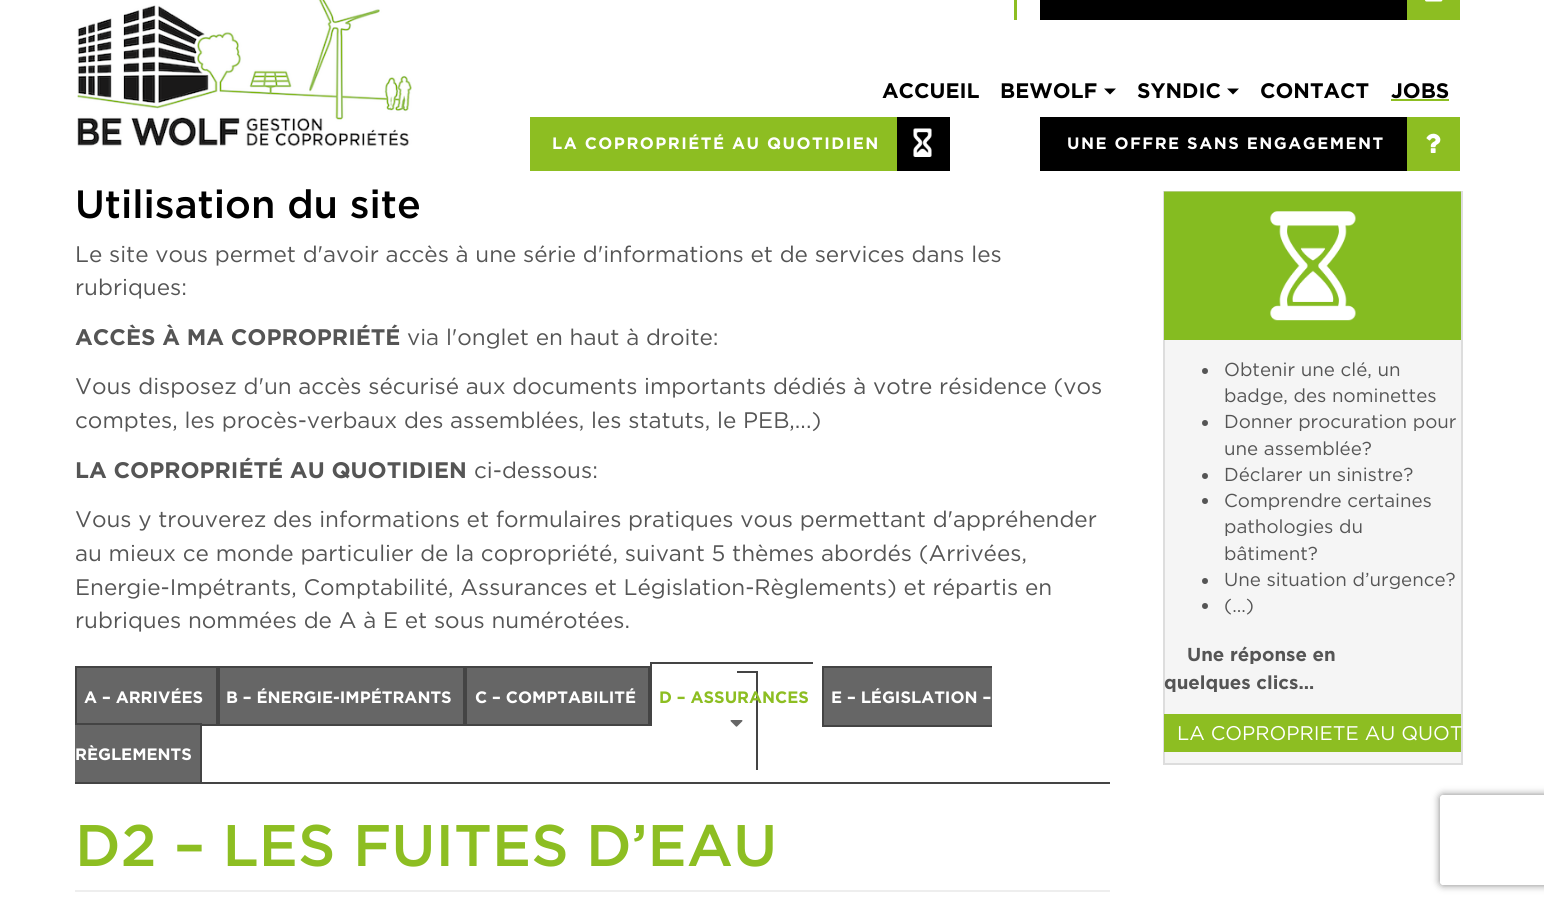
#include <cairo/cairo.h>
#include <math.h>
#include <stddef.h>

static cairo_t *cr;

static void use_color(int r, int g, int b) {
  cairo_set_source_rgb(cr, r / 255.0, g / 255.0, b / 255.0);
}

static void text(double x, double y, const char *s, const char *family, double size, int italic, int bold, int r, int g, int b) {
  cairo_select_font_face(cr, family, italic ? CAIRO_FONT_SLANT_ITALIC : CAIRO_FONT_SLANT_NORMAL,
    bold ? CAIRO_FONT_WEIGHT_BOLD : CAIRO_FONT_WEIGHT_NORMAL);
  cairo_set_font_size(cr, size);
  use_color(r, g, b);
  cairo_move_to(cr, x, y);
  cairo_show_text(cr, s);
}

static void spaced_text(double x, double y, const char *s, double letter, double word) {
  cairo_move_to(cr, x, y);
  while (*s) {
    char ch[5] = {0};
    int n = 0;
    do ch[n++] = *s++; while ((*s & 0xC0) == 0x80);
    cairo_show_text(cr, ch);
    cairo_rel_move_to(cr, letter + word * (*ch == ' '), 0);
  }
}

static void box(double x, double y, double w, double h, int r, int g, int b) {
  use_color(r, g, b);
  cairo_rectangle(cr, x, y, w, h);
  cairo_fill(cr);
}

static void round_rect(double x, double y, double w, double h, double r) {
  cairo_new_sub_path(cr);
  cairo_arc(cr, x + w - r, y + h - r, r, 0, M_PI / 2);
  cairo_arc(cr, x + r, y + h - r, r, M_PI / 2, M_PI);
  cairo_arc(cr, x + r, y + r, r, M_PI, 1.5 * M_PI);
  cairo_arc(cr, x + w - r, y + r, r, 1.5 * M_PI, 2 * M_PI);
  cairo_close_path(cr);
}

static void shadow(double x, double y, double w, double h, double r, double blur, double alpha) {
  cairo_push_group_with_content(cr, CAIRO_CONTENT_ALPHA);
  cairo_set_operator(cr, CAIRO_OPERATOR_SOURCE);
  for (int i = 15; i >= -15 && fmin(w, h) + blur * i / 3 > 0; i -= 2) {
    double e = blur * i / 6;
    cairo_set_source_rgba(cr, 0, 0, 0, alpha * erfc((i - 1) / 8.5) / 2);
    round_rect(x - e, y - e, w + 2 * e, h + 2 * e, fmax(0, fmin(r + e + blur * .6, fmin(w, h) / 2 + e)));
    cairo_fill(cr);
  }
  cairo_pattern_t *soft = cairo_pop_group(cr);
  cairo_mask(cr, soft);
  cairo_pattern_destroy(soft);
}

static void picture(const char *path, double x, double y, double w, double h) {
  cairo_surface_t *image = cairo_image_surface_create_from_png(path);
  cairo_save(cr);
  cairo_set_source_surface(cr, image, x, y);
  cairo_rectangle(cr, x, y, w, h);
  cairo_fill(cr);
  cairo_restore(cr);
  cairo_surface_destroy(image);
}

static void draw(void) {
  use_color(255, 255, 255);
  cairo_paint(cr);
  picture("img_01.png", 77, 0, 335, 147);
  box(1014, 0, 3, 20, 141, 190, 34);
  box(1040, 0, 367, 20, 0, 0, 0);
  box(1407, 0, 53, 20, 141, 190, 34);
  picture("img_02.png", 1425, 0, 18, 2);
  use_color(0, 0, 0);
  cairo_new_path(cr);
  cairo_move_to(cr, 1104, 88.5);
  cairo_line_to(cr, 1116, 88.5);
  cairo_line_to(cr, 1110, 94.5);
  cairo_close_path(cr);
  cairo_fill(cr);
  cairo_new_path(cr);
  cairo_move_to(cr, 1227, 88.5);
  cairo_line_to(cr, 1239, 88.5);
  cairo_line_to(cr, 1233, 94.5);
  cairo_close_path(cr);
  cairo_fill(cr);
  box(1391, 99, 58, 2, 141, 190, 34);
  box(530, 117, 367, 54, 141, 190, 34);
  box(897, 117, 53, 54, 0, 0, 0);
  picture("img_03.png", 913, 128, 19, 29);
  box(1040, 117, 367, 54, 0, 0, 0);
  box(1407, 117, 53, 54, 141, 190, 34);
  picture("img_04.png", 1426, 133, 15, 20);
  box(201, 782, 909, 2, 68, 68, 68);
  use_color(102, 102, 102);
  cairo_rectangle(cr, 76, 667, 141, 58);
  cairo_fill_preserve(cr);
  use_color(68, 68, 68);
  cairo_stroke(cr);
  use_color(102, 102, 102);
  cairo_rectangle(cr, 219, 667, 245, 58);
  cairo_fill_preserve(cr);
  use_color(68, 68, 68);
  cairo_stroke(cr);
  use_color(102, 102, 102);
  cairo_rectangle(cr, 466, 667, 183, 58);
  cairo_fill_preserve(cr);
  use_color(68, 68, 68);
  cairo_stroke(cr);
  box(650, 662, 163, 2, 68, 68, 68);
  box(650, 662, 2, 64, 68, 68, 68);
  box(737, 671, 21, 2, 68, 68, 68);
  box(756, 671, 2, 100, 68, 68, 68);
  box(756, 770, 2, 1, 255, 255, 255);
  picture("img_05.png", 730, 720, 13, 7);
  box(824, 668, 168, 57, 102, 102, 102);
  box(822, 666, 170, 2, 68, 68, 68);
  box(822, 725, 170, 2, 68, 68, 68);
  box(822, 666, 2, 60, 68, 68, 68);
  box(75, 725, 125, 57, 102, 102, 102);
  box(75, 723, 126, 1, 68, 68, 68);
  box(200, 723, 2, 60, 68, 68, 68);
  box(75, 782, 126, 2, 68, 68, 68);
  box(75, 890, 1035, 2, 238, 238, 238);
  box(1165, 340, 296, 423, 245, 245, 245);
  cairo_rectangle(cr, 1164, 192, 298, 572);
  use_color(221, 221, 221);
  cairo_stroke(cr);
  picture("img_06.png", 1164, 191, 297, 149);
  use_color(85, 85, 85);
  cairo_arc(cr, 1205, 371, 3, 0, 2 * M_PI);
  cairo_fill(cr);
  cairo_arc(cr, 1205, 423, 3, 0, 2 * M_PI);
  cairo_fill(cr);
  cairo_arc(cr, 1205, 476, 3, 0, 2 * M_PI);
  cairo_fill(cr);
  cairo_arc(cr, 1205, 501, 3, 0, 2 * M_PI);
  cairo_fill(cr);
  cairo_arc(cr, 1205, 581, 3, 0, 2 * M_PI);
  cairo_fill(cr);
  cairo_arc(cr, 1205, 606, 3, 0, 2 * M_PI);
  cairo_fill(cr);
  box(1164, 714, 297, 38, 141, 190, 34);
  cairo_save(cr);
  cairo_set_fill_rule(cr, CAIRO_FILL_RULE_EVEN_ODD);
  cairo_new_path(cr);
  cairo_move_to(cr, 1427, 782);
  cairo_line_to(cr, 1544, 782);
  cairo_line_to(cr, 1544, 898);
  cairo_line_to(cr, 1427, 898);
  cairo_close_path(cr);
  cairo_move_to(cr, 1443, 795);
  cairo_line_to(cr, 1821, 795);
  cairo_curve_to(cr, 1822.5, 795, 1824, 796.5, 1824, 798);
  cairo_line_to(cr, 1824, 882);
  cairo_curve_to(cr, 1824, 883.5, 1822.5, 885, 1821, 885);
  cairo_line_to(cr, 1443, 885);
  cairo_curve_to(cr, 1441.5, 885, 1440, 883.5, 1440, 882);
  cairo_line_to(cr, 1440, 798);
  cairo_curve_to(cr, 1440, 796.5, 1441.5, 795, 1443, 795);
  cairo_close_path(cr);
  cairo_clip(cr);
  use_color(128, 128, 128);
  shadow(1440, 795, 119, 90, 3, 4, 1);
  cairo_restore(cr);
  text(882, 98, "ACCUEIL", "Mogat", 21, 0, 1, 0, 0, 0);
  text(1000, 98, "BEWOLF", "Mogat", 21, 0, 1, 0, 0, 0);
  text(1137, 98, "SYNDIC", "Mogat", 21, 0, 1, 0, 0, 0);
  text(1260, 98, "CONTACT", "Mogat", 21, 0, 1, 0, 0, 0);
  text(1391, 98, "JOBS", "Mogat", 21, 0, 1, 0, 0, 0);
  cairo_set_font_size(cr, 16.5);
  use_color(255, 255, 255);
  spaced_text(552, 149, "LA COPROPRIÉTÉ AU QUOTIDIEN", 1.5, 0);
  spaced_text(1067, 149, "UNE OFFRE SANS ENGAGEMENT", 1.5, 0);
  text(75, 218, "Utilisation du site", "Mogat Medium", 39.4, 0, 0, 0, 0, 0);
  text(75, 262, "Le site vous permet d'avoir accès à une série d'informations et de services dans les", "Mogat", 22.5, 0, 0, 85, 85, 85);
  text(75, 295, "rubriques:", "Mogat", 22.5, 0, 0, 85, 85, 85);
  text(75, 345, "ACCÈS À MA COPROPRIÉTÉ", "Mogat", 22.5, 0, 1, 85, 85, 85);
  text(407, 345, "via l'onglet en haut à droite:", "Mogat", 22.5, 0, 0, 85, 85, 85);
  text(75, 394, "Vous disposez d'un accès sécurisé aux documents importants dédiés à votre résidence (vos", "Mogat", 22.5, 0, 0, 85, 85, 85);
  text(75, 428, "comptes, les procès-verbaux des assemblées, les statuts, le PEB,...)", "Mogat", 22.5, 0, 0, 85, 85, 85);
  text(75, 478, "LA COPROPRIÉTÉ AU QUOTIDIEN", "Mogat", 22.5, 0, 1, 85, 85, 85);
  text(474, 478, "ci-dessous:", "Mogat", 22.5, 0, 0, 85, 85, 85);
  text(75, 527, "Vous y trouverez des informations et formulaires pratiques vous permettant d'appréhender", "Mogat", 22.5, 0, 0, 85, 85, 85);
  text(75, 561, "au mieux ce monde particulier de la copropriété, suivant 5 thèmes abordés (Arrivées,", "Mogat", 22.5, 0, 0, 85, 85, 85);
  text(75, 595, "Energie-Impétrants, Comptabilité, Assurances et Législation-Règlements) et répartis en", "Mogat", 22.5, 0, 0, 85, 85, 85);
  text(75, 628, "rubriques nommées de A à E et sous numérotées.", "Mogat", 22.5, 0, 0, 85, 85, 85);
  text(84, 703, "A – ARRIVÉES", "Mogat", 16.5, 0, 1, 255, 255, 255);
  text(226, 703, "B – ÉNERGIE-IMPÉTRANTS", "Mogat", 16.5, 0, 1, 255, 255, 255);
  text(475, 703, "C – COMPTABILITÉ", "Mogat", 16.5, 0, 1, 255, 255, 255);
  text(659, 703, "D – ASSURANCES", "Mogat", 16.5, 0, 1, 141, 190, 34);
  text(831, 703, "E – LÉGISLATION –", "Mogat", 16.5, 0, 1, 255, 255, 255);
  text(75, 760, "RÈGLEMENTS", "Mogat", 16.5, 0, 1, 255, 255, 255);
  text(75, 866, "D2 – LES FUITES D’EAU", "Mogat Medium", 58.5, 0, 0, 141, 190, 34);
  text(1224, 376, "Obtenir une clé, un", "Mogat", 18.75, 0, 0, 85, 85, 85);
  text(1224, 402, "badge, des nominettes", "Mogat", 18.75, 0, 0, 85, 85, 85);
  text(1224, 428, "Donner procuration pour", "Mogat", 18.75, 0, 0, 85, 85, 85);
  text(1224, 455, "une assemblée?", "Mogat", 18.75, 0, 0, 85, 85, 85);
  text(1224, 481, "Déclarer un sinistre?", "Mogat", 18.75, 0, 0, 85, 85, 85);
  text(1224, 507, "Comprendre certaines", "Mogat", 18.75, 0, 0, 85, 85, 85);
  text(1224, 533, "pathologies du", "Mogat", 18.75, 0, 0, 85, 85, 85);
  text(1224, 560, "bâtiment?", "Mogat", 18.75, 0, 0, 85, 85, 85);
  text(1224, 586, "Une situation d’urgence?", "Mogat", 18.75, 0, 0, 85, 85, 85);
  text(1224, 612, "(…)", "Mogat", 18.75, 0, 0, 85, 85, 85);
  text(1187, 661, "Une réponse en", "Mogat", 18.75, 0, 1, 85, 85, 85);
  text(1164, 689, "quelques clics…", "Mogat", 18.75, 0, 1, 85, 85, 85);
  text(1177, 740, "LA COPROPRIETE AU QUOT", "Mogat", 19.75, 0, 0, 255, 255, 255);
}

int main(void) {
  cairo_surface_t *surface = cairo_image_surface_create(CAIRO_FORMAT_RGB24, 1544, 906);
  cr = cairo_create(surface);
  cairo_font_options_t *options = cairo_font_options_create();
  cairo_font_options_set_hint_metrics(options, CAIRO_HINT_METRICS_OFF);
  cairo_font_options_set_hint_style(options, CAIRO_HINT_STYLE_NONE);
  cairo_set_font_options(cr, options);
  cairo_set_miter_limit(cr, 4);
  draw();
  cairo_surface_write_to_png(surface, "out.png");
  cairo_font_options_destroy(options);
  cairo_destroy(cr);
  cairo_surface_destroy(surface);
  return 0;
}
